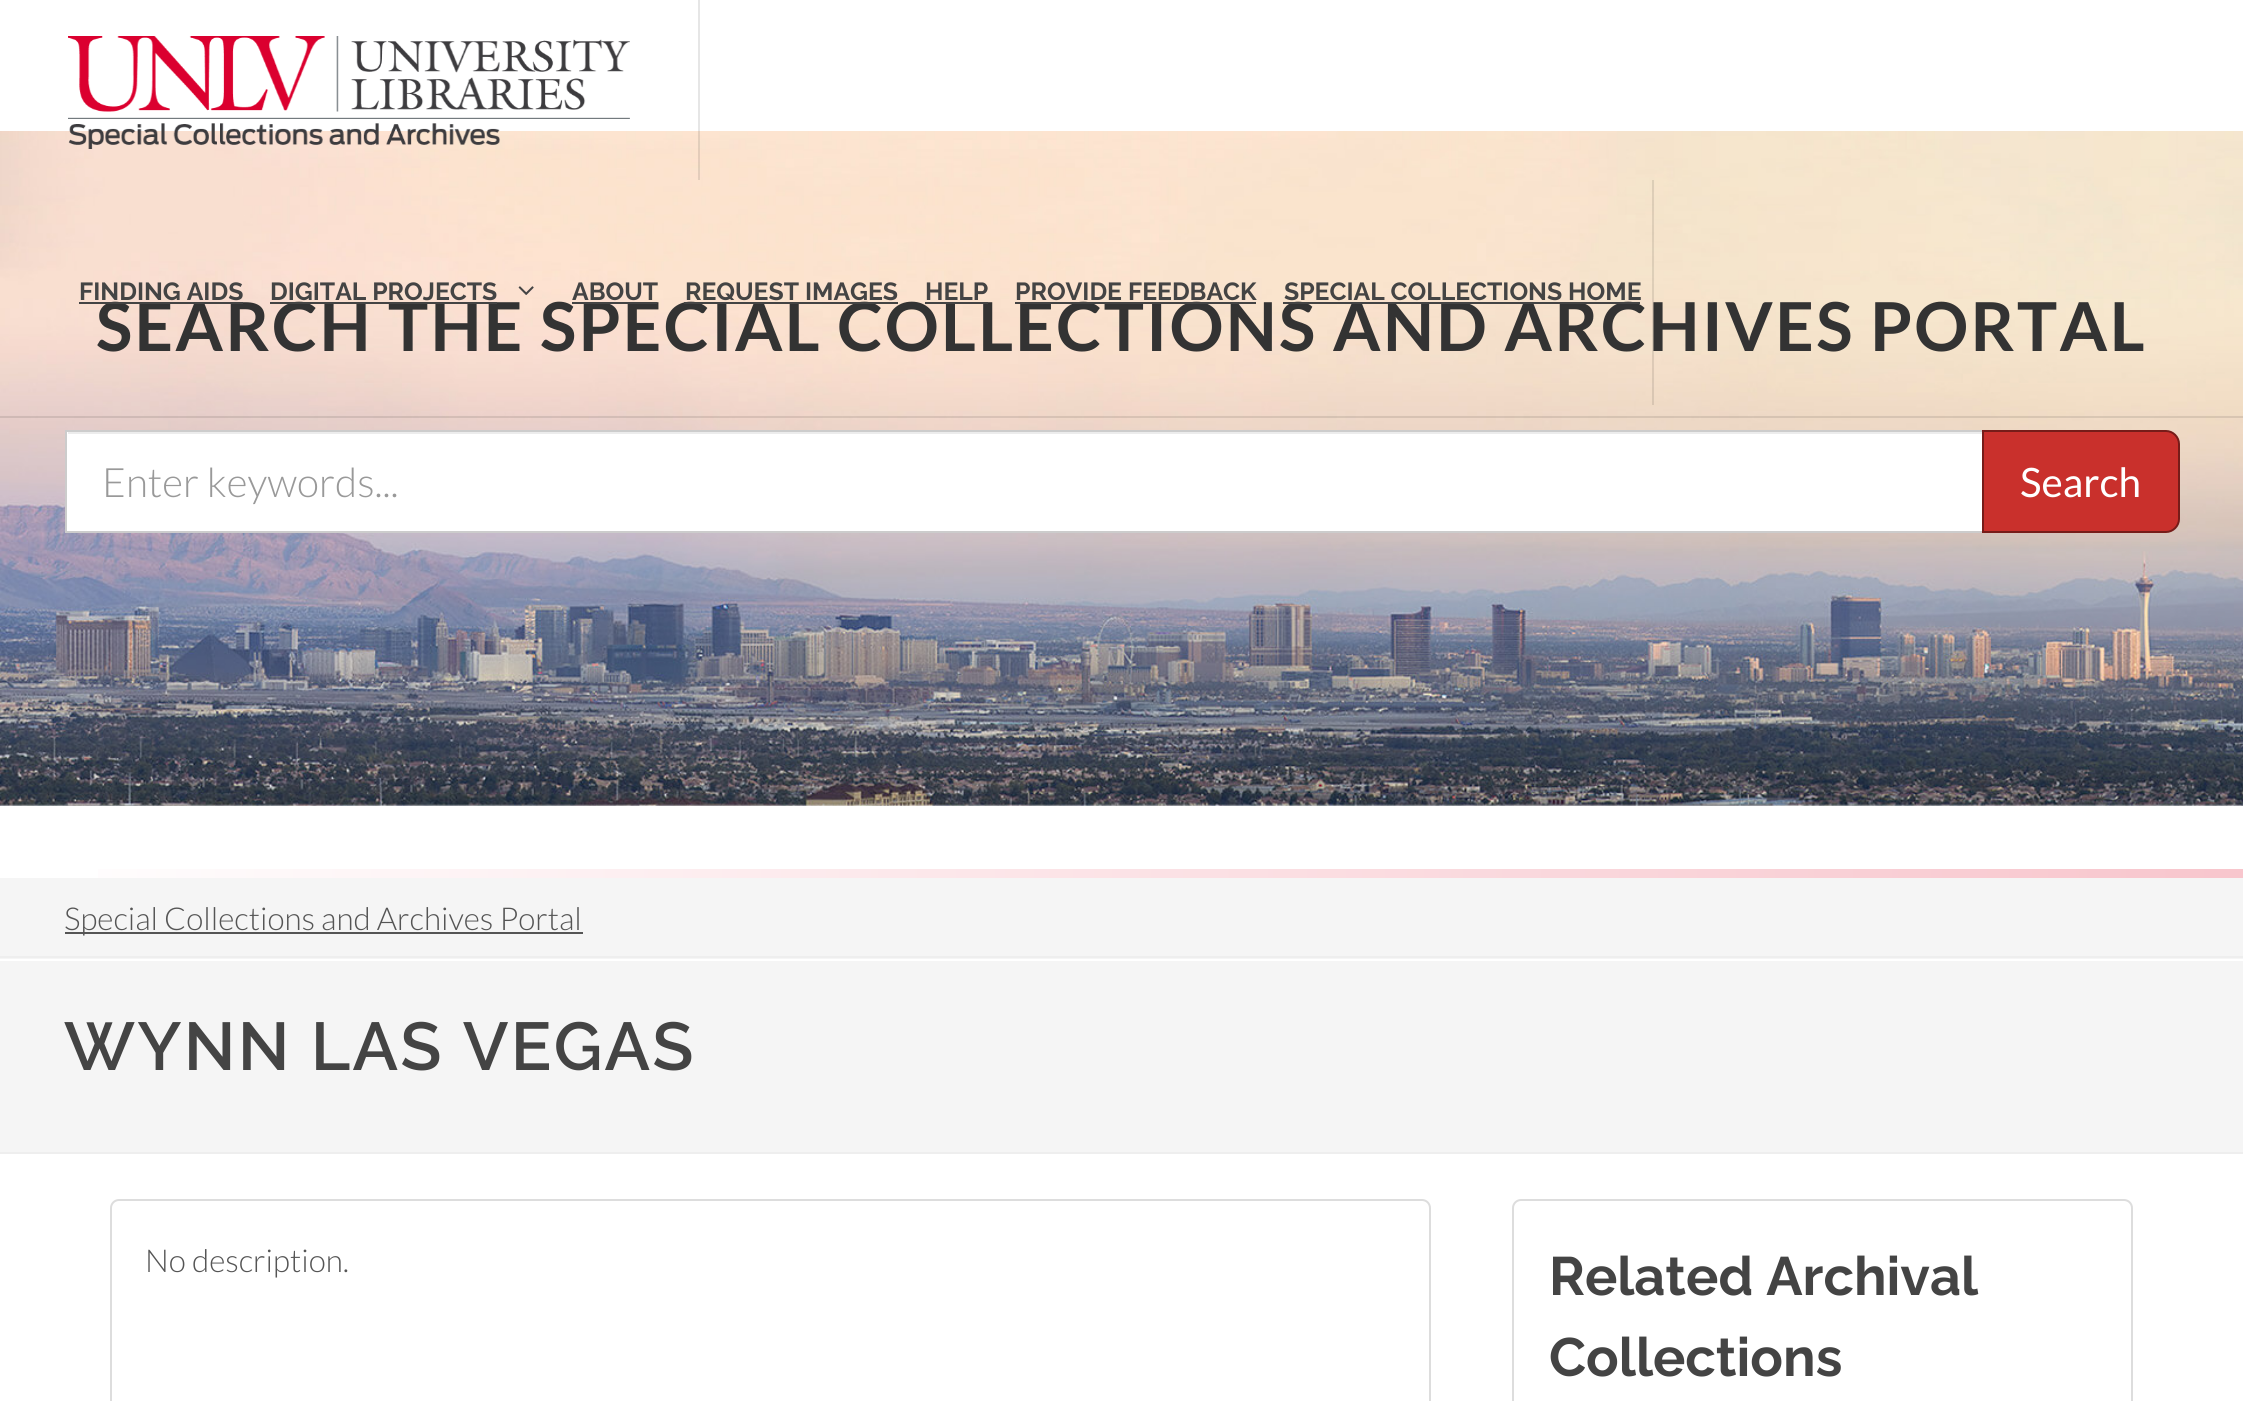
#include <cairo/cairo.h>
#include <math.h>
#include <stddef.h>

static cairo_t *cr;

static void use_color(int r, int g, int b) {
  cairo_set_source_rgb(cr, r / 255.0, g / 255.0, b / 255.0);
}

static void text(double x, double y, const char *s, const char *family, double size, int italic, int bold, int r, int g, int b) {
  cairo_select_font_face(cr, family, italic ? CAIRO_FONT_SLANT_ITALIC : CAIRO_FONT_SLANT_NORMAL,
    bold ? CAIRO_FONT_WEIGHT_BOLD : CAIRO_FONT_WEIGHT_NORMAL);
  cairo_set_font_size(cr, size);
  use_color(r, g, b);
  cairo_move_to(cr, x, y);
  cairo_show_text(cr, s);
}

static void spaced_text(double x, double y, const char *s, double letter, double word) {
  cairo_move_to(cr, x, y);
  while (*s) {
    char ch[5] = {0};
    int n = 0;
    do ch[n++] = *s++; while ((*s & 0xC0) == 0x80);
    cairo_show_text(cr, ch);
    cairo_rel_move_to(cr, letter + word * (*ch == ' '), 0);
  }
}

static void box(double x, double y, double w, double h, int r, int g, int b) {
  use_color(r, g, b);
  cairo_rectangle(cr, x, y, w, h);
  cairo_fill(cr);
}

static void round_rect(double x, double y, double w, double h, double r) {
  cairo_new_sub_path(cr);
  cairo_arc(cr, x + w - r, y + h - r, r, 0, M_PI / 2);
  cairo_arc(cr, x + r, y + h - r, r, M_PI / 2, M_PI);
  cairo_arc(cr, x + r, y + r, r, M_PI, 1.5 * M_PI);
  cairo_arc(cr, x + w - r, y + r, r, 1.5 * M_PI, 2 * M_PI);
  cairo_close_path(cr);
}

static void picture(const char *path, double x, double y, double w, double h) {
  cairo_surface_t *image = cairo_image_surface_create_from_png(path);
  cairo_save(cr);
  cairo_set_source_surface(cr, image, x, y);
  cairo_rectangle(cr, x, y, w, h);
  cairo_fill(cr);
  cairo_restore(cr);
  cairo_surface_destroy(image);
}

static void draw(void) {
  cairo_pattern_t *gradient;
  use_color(255, 255, 255);
  cairo_paint(cr);
  picture("img_03.png", 0, 131, 2243, 675);
  cairo_set_source_rgba(cr, 0, 0, 0, 0.1);
  cairo_rectangle(cr, 0, 416, 2243, 2);
  cairo_fill(cr);
  cairo_rectangle(cr, 698, 0, 2, 180);
  cairo_fill(cr);
  picture("img_01.png", 68, 36, 562, 113);
  cairo_rectangle(cr, 1652, 180, 2, 225);
  cairo_fill(cr);
  picture("img_02.png", 518, 286, 16, 9);
  box(67, 432, 1915, 99, 255, 255, 255);
  box(68, 432, 1914, 2, 236, 236, 236);
  cairo_rectangle(cr, 66, 431, 1918, 101);
  use_color(204, 204, 204);
  cairo_stroke(cr);
  use_color(201, 48, 44);
  cairo_new_path(cr);
  cairo_move_to(cr, 1983, 431);
  cairo_line_to(cr, 2166, 431);
  cairo_curve_to(cr, 2173, 431, 2179, 437, 2179, 444);
  cairo_line_to(cr, 2179, 519);
  cairo_curve_to(cr, 2179, 526, 2173, 532, 2166, 532);
  cairo_line_to(cr, 1983, 532);
  cairo_close_path(cr);
  cairo_fill_preserve(cr);
  use_color(118, 28, 25);
  cairo_stroke(cr);
  gradient = cairo_pattern_create_linear(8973, 886, 0, 887);
  cairo_pattern_add_color_stop_rgba(gradient, 0, 0.89, 0.098, 0.212, 1);
  cairo_pattern_add_color_stop_rgba(gradient, 1, 1, 1, 1, 1);
  cairo_set_source(cr, gradient);
  cairo_pattern_destroy(gradient);
  cairo_rectangle(cr, 98, 869, 2145, 9);
  cairo_fill(cr);
  box(0, 878, 2243, 81, 245, 245, 245);
  box(0, 956, 2243, 2, 238, 238, 238);
  box(65, 932, 518, 2, 85, 85, 85);
  box(0, 961, 2243, 191, 245, 245, 245);
  box(0, 1152, 2243, 2, 238, 238, 238);
  round_rect(111, 1200, 1319, 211, 8);
  use_color(221, 221, 221);
  cairo_stroke(cr);
  round_rect(1513, 1200, 619, 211, 8);
  cairo_stroke(cr);
  text(79, 300, "FINDING AIDS", "Raleway", 24.75, 0, 1, 68, 68, 68);
  text(270, 300, "DIGITAL PROJECTS", "Raleway", 24.75, 0, 1, 68, 68, 68);
  text(572, 300, "ABOUT", "Raleway", 24.75, 0, 1, 68, 68, 68);
  text(685, 300, "REQUEST IMAGES", "Raleway", 24.75, 0, 1, 68, 68, 68);
  text(925, 300, "HELP", "Raleway", 24.75, 0, 1, 68, 68, 68);
  text(1015, 300, "PROVIDE FEEDBACK", "Raleway", 24.75, 0, 1, 68, 68, 68);
  text(1284, 300, "SPECIAL COLLECTIONS HOME", "Raleway", 24.75, 0, 1, 68, 68, 68);
  cairo_select_font_face(cr, "Lato", CAIRO_FONT_SLANT_NORMAL, CAIRO_FONT_WEIGHT_BOLD);
  cairo_set_font_size(cr, 67.5);
  use_color(51, 51, 51);
  spaced_text(96, 351, "SEARCH THE SPECIAL COLLECTIONS AND ARCHIVES PORTAL", 2.25, 0);
  box(1283, 302, 357, 2, 68, 68, 68);
  box(1015, 302, 241, 2, 68, 68, 68);
  box(925, 302, 63, 2, 68, 68, 68);
  box(684, 302, 214, 2, 68, 68, 68);
  box(572, 302, 85, 2, 68, 68, 68);
  box(79, 302, 164, 2, 68, 68, 68);
  box(270, 302, 227, 2, 68, 68, 68);
  text(102, 497, "Enter keywords...", "Lato Light", 40.5, 0, 0, 153, 153, 153);
  text(2020, 497, "Search", "Lato", 40.5, 0, 0, 255, 255, 255);
  text(64, 930, "Special Collections and Archives Portal", "Lato Light", 31.5, 0, 0, 85, 85, 85);
  cairo_select_font_face(cr, "Raleway SemiBold", CAIRO_FONT_SLANT_NORMAL, CAIRO_FONT_WEIGHT_NORMAL);
  cairo_set_font_size(cr, 67.5);
  use_color(68, 68, 68);
  spaced_text(64, 1070, "WYNN LAS VEGAS", 2.25, 0);
  text(145, 1272, "No description.", "Lato Light", 31.5, 0, 0, 85, 85, 85);
  text(1549, 1295, "Related Archival", "Raleway", 54, 0, 1, 68, 68, 68);
  text(1549, 1376, "Collections", "Raleway", 54, 0, 1, 68, 68, 68);
}

int main(void) {
  cairo_surface_t *surface = cairo_image_surface_create(CAIRO_FORMAT_RGB24, 2243, 1401);
  cr = cairo_create(surface);
  cairo_font_options_t *options = cairo_font_options_create();
  cairo_font_options_set_hint_metrics(options, CAIRO_HINT_METRICS_OFF);
  cairo_font_options_set_hint_style(options, CAIRO_HINT_STYLE_NONE);
  cairo_set_font_options(cr, options);
  cairo_set_miter_limit(cr, 4);
  draw();
  cairo_surface_write_to_png(surface, "out.png");
  cairo_font_options_destroy(options);
  cairo_destroy(cr);
  cairo_surface_destroy(surface);
  return 0;
}
